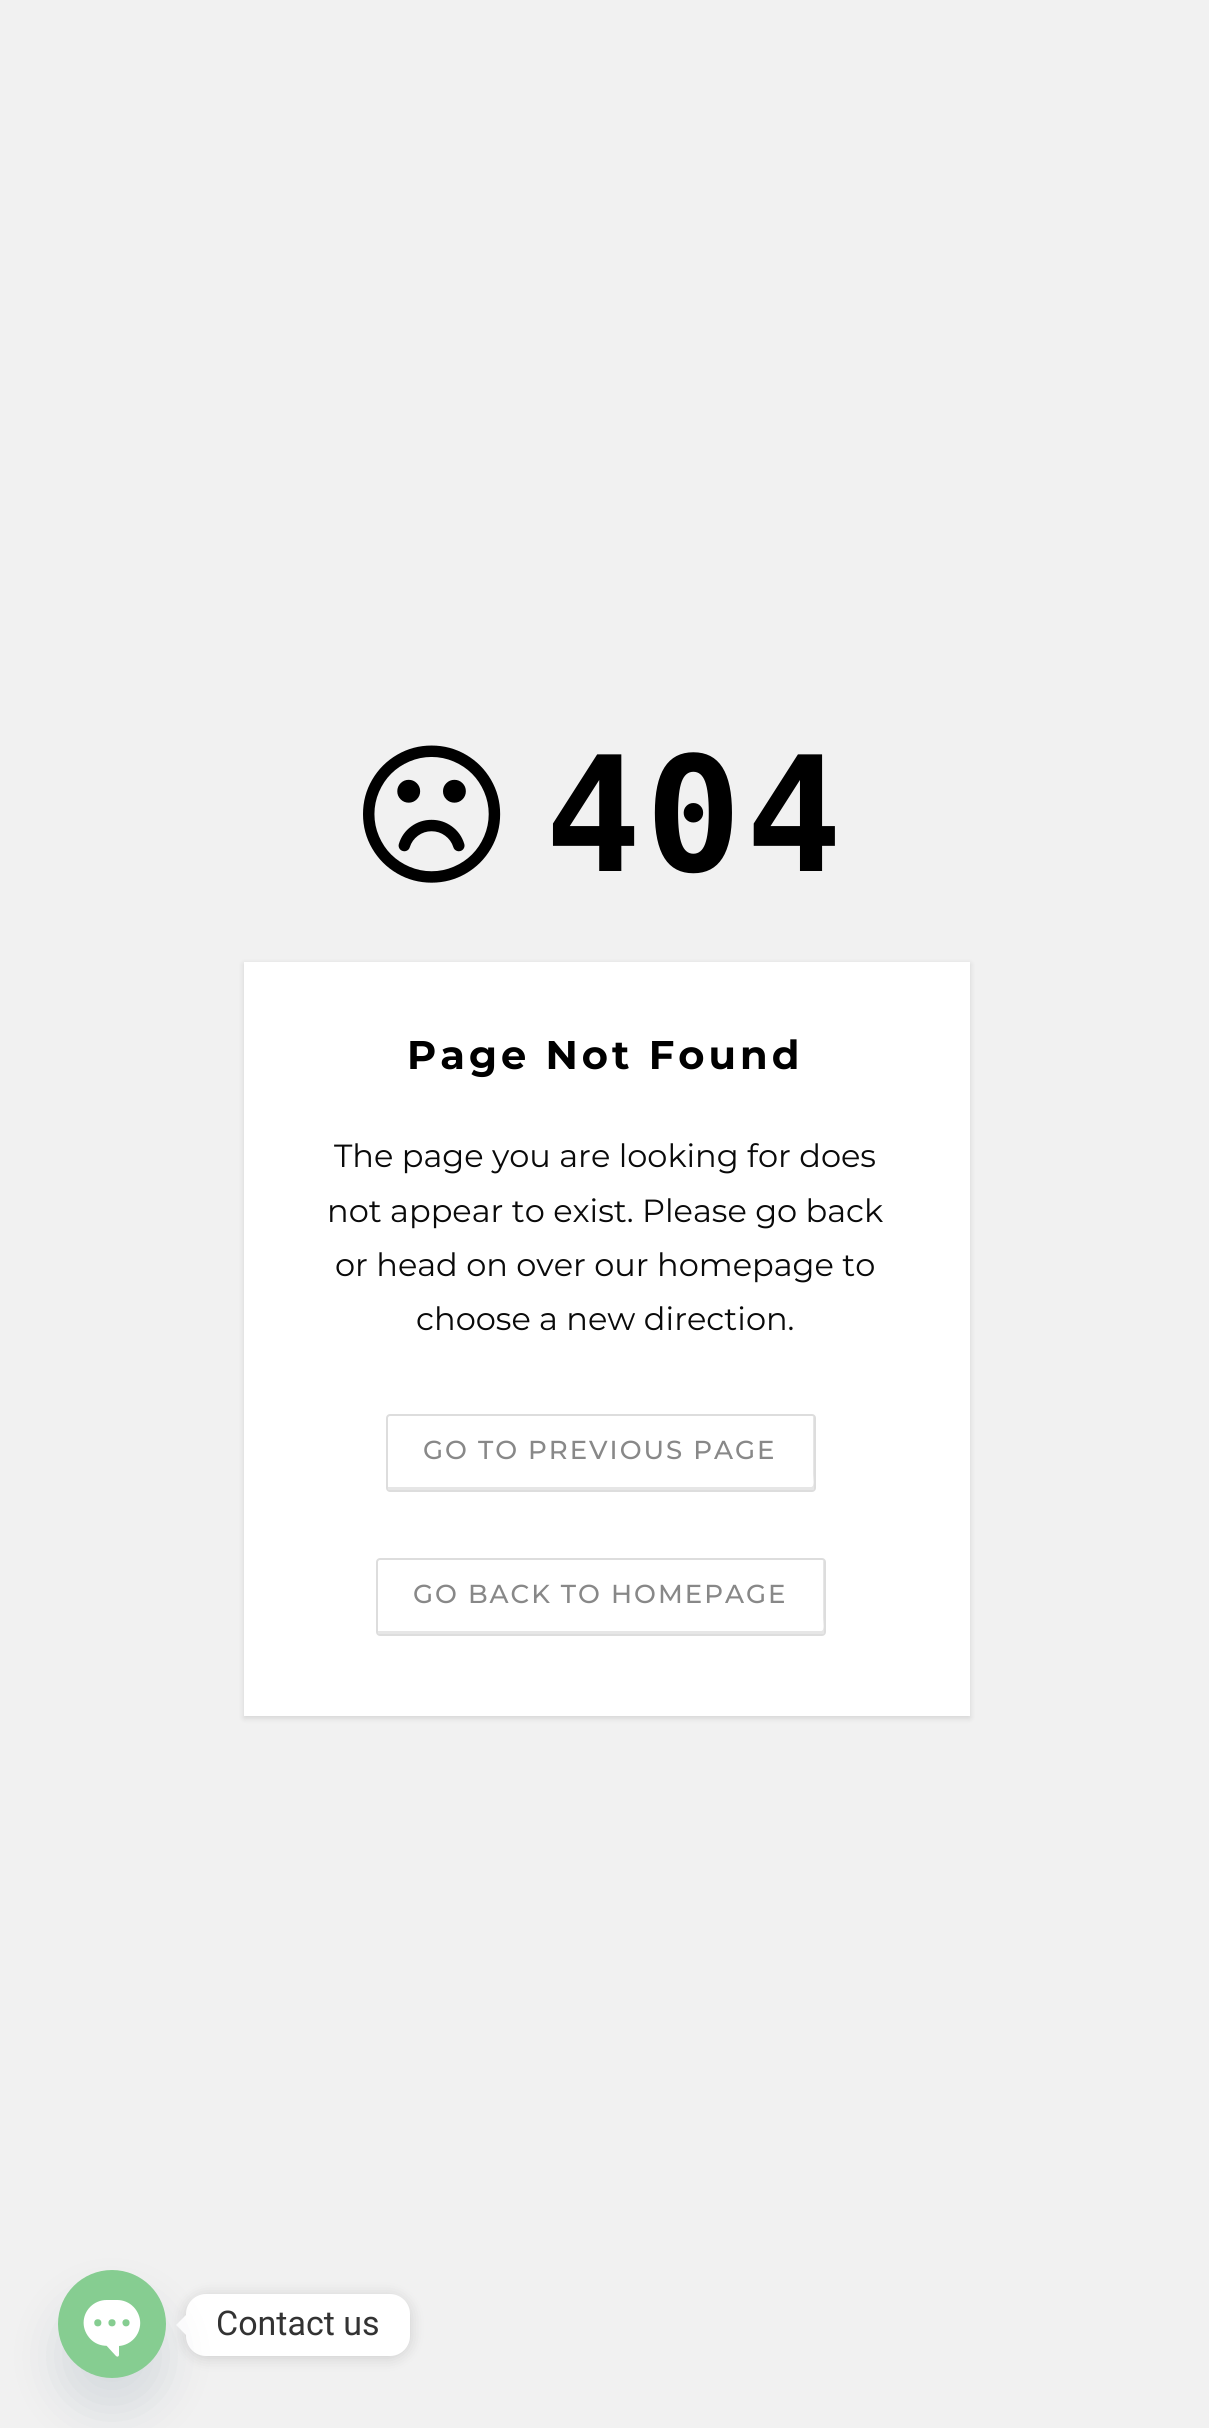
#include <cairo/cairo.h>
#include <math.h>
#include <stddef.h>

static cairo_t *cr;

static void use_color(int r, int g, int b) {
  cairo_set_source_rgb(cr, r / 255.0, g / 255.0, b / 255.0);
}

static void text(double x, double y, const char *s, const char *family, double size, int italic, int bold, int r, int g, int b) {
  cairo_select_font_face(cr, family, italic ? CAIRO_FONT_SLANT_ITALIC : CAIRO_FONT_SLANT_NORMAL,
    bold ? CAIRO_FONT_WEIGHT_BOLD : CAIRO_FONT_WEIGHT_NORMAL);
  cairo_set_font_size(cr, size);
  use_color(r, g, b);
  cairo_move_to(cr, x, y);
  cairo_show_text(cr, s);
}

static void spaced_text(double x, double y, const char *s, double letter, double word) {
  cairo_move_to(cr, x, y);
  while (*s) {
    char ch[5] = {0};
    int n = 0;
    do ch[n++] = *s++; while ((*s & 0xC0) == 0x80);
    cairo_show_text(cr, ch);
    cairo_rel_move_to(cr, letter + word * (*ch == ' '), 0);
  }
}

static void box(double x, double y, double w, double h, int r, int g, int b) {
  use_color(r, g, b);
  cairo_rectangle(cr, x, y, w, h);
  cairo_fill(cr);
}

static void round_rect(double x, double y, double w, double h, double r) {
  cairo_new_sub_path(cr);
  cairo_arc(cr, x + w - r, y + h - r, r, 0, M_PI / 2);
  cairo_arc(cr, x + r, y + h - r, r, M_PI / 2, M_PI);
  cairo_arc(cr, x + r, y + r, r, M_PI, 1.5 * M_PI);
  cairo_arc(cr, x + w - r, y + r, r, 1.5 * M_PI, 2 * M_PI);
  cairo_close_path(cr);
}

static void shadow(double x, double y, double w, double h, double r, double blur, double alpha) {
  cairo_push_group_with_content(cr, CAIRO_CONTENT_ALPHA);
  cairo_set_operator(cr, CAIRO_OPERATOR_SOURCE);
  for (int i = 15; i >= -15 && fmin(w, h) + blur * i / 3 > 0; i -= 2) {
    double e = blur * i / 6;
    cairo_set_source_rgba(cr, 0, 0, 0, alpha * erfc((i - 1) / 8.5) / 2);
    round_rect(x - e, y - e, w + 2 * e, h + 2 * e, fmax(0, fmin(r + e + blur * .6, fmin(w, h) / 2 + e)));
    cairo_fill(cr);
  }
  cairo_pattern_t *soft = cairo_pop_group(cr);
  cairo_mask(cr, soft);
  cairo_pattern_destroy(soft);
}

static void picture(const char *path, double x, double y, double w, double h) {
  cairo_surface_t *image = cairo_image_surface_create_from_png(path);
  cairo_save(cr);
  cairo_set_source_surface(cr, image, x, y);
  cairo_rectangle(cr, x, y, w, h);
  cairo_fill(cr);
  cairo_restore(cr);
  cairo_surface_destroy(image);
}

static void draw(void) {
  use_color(241, 241, 241);
  cairo_paint(cr);
  picture("img_01.png", 363, 745, 138, 138);
  use_color(0, 0, 0);
  shadow(244, 964, 726, 754, 0, 3, 0.13);
  box(244, 962, 726, 754, 255, 255, 255);
  use_color(230, 230, 230);
  cairo_new_path(cr);
  cairo_move_to(cr, 388, 1487);
  cairo_line_to(cr, 388, 1488);
  cairo_curve_to(cr, 388, 1489, 389, 1490, 390, 1490);
  cairo_line_to(cr, 812, 1490);
  cairo_curve_to(cr, 813, 1490, 814, 1489, 814, 1488);
  cairo_line_to(cr, 814, 1418);
  cairo_curve_to(cr, 814, 1417, 814, 1417, 813, 1416);
  cairo_line_to(cr, 813, 1474);
  cairo_curve_to(cr, 813, 1478, 815, 1487, 811, 1487);
  cairo_close_path(cr);
  cairo_fill(cr);
  round_rect(387, 1415, 428, 76, 3);
  use_color(221, 221, 221);
  cairo_stroke(cr);
  use_color(230, 230, 230);
  cairo_new_path(cr);
  cairo_move_to(cr, 378, 1631);
  cairo_line_to(cr, 378, 1632);
  cairo_curve_to(cr, 378, 1633, 379, 1634, 380, 1634);
  cairo_line_to(cr, 822, 1634);
  cairo_curve_to(cr, 823, 1634, 824, 1633, 824, 1632);
  cairo_line_to(cr, 824, 1562);
  cairo_curve_to(cr, 824, 1561, 824, 1561, 823, 1560);
  cairo_line_to(cr, 823, 1618);
  cairo_curve_to(cr, 823, 1622, 825, 1631, 821, 1631);
  cairo_close_path(cr);
  cairo_fill(cr);
  round_rect(377, 1559, 448, 76, 3);
  use_color(221, 221, 221);
  cairo_stroke(cr);
  use_color(0, 0, 0);
  shadow(186, 2296, 224, 62, 20, 7.5, 0.15);
  use_color(255, 255, 255);
  round_rect(186, 2294, 224, 62, 20);
  cairo_fill(cr);
  cairo_new_path(cr);
  cairo_move_to(cr, 186, 2315);
  cairo_line_to(cr, 186, 2335);
  cairo_line_to(cr, 176, 2325);
  cairo_close_path(cr);
  cairo_fill(cr);
  use_color(73, 104, 126);
  shadow(58, 2302, 108, 108, 54, 24, 0.16);
  picture("img_02.png", 58, 2270, 108, 108);
  cairo_select_font_face(cr, "DejaVu Sans Mono", CAIRO_FONT_SLANT_NORMAL, CAIRO_FONT_WEIGHT_BOLD);
  cairo_set_font_size(cr, 160);
  use_color(0, 0, 0);
  spaced_text(545, 871, "404", 4, 0);
  cairo_select_font_face(cr, "Montserrat", CAIRO_FONT_SLANT_NORMAL, CAIRO_FONT_WEIGHT_BOLD);
  cairo_set_font_size(cr, 40);
  spaced_text(407, 1069, "Page Not Found", 4, 0);
  text(334, 1167, "The page you are looking for does", "Montserrat", 32, 0, 0, 10, 10, 10);
  text(327, 1222, "not appear to exist. Please go back", "Montserrat", 32, 0, 0, 10, 10, 10);
  text(335, 1276, "or head on over our homepage to", "Montserrat", 32, 0, 0, 10, 10, 10);
  text(416, 1330, "choose a new direction.", "Montserrat", 32, 0, 0, 10, 10, 10);
  cairo_select_font_face(cr, "Montserrat Medium", CAIRO_FONT_SLANT_NORMAL, CAIRO_FONT_WEIGHT_NORMAL);
  cairo_set_font_size(cr, 26);
  use_color(136, 136, 136);
  spaced_text(423, 1459, "GO TO PREVIOUS PAGE", 2, 0);
  spaced_text(413, 1603, "GO BACK TO HOMEPAGE", 2, 0);
  text(216, 2335, "Contact us", "Roboto", 34, 0, 0, 51, 51, 51);
}

int main(void) {
  cairo_surface_t *surface = cairo_image_surface_create(CAIRO_FORMAT_RGB24, 1209, 2428);
  cr = cairo_create(surface);
  cairo_font_options_t *options = cairo_font_options_create();
  cairo_font_options_set_hint_metrics(options, CAIRO_HINT_METRICS_OFF);
  cairo_font_options_set_hint_style(options, CAIRO_HINT_STYLE_NONE);
  cairo_set_font_options(cr, options);
  cairo_set_miter_limit(cr, 4);
  draw();
  cairo_surface_write_to_png(surface, "out.png");
  cairo_font_options_destroy(options);
  cairo_destroy(cr);
  cairo_surface_destroy(surface);
  return 0;
}
